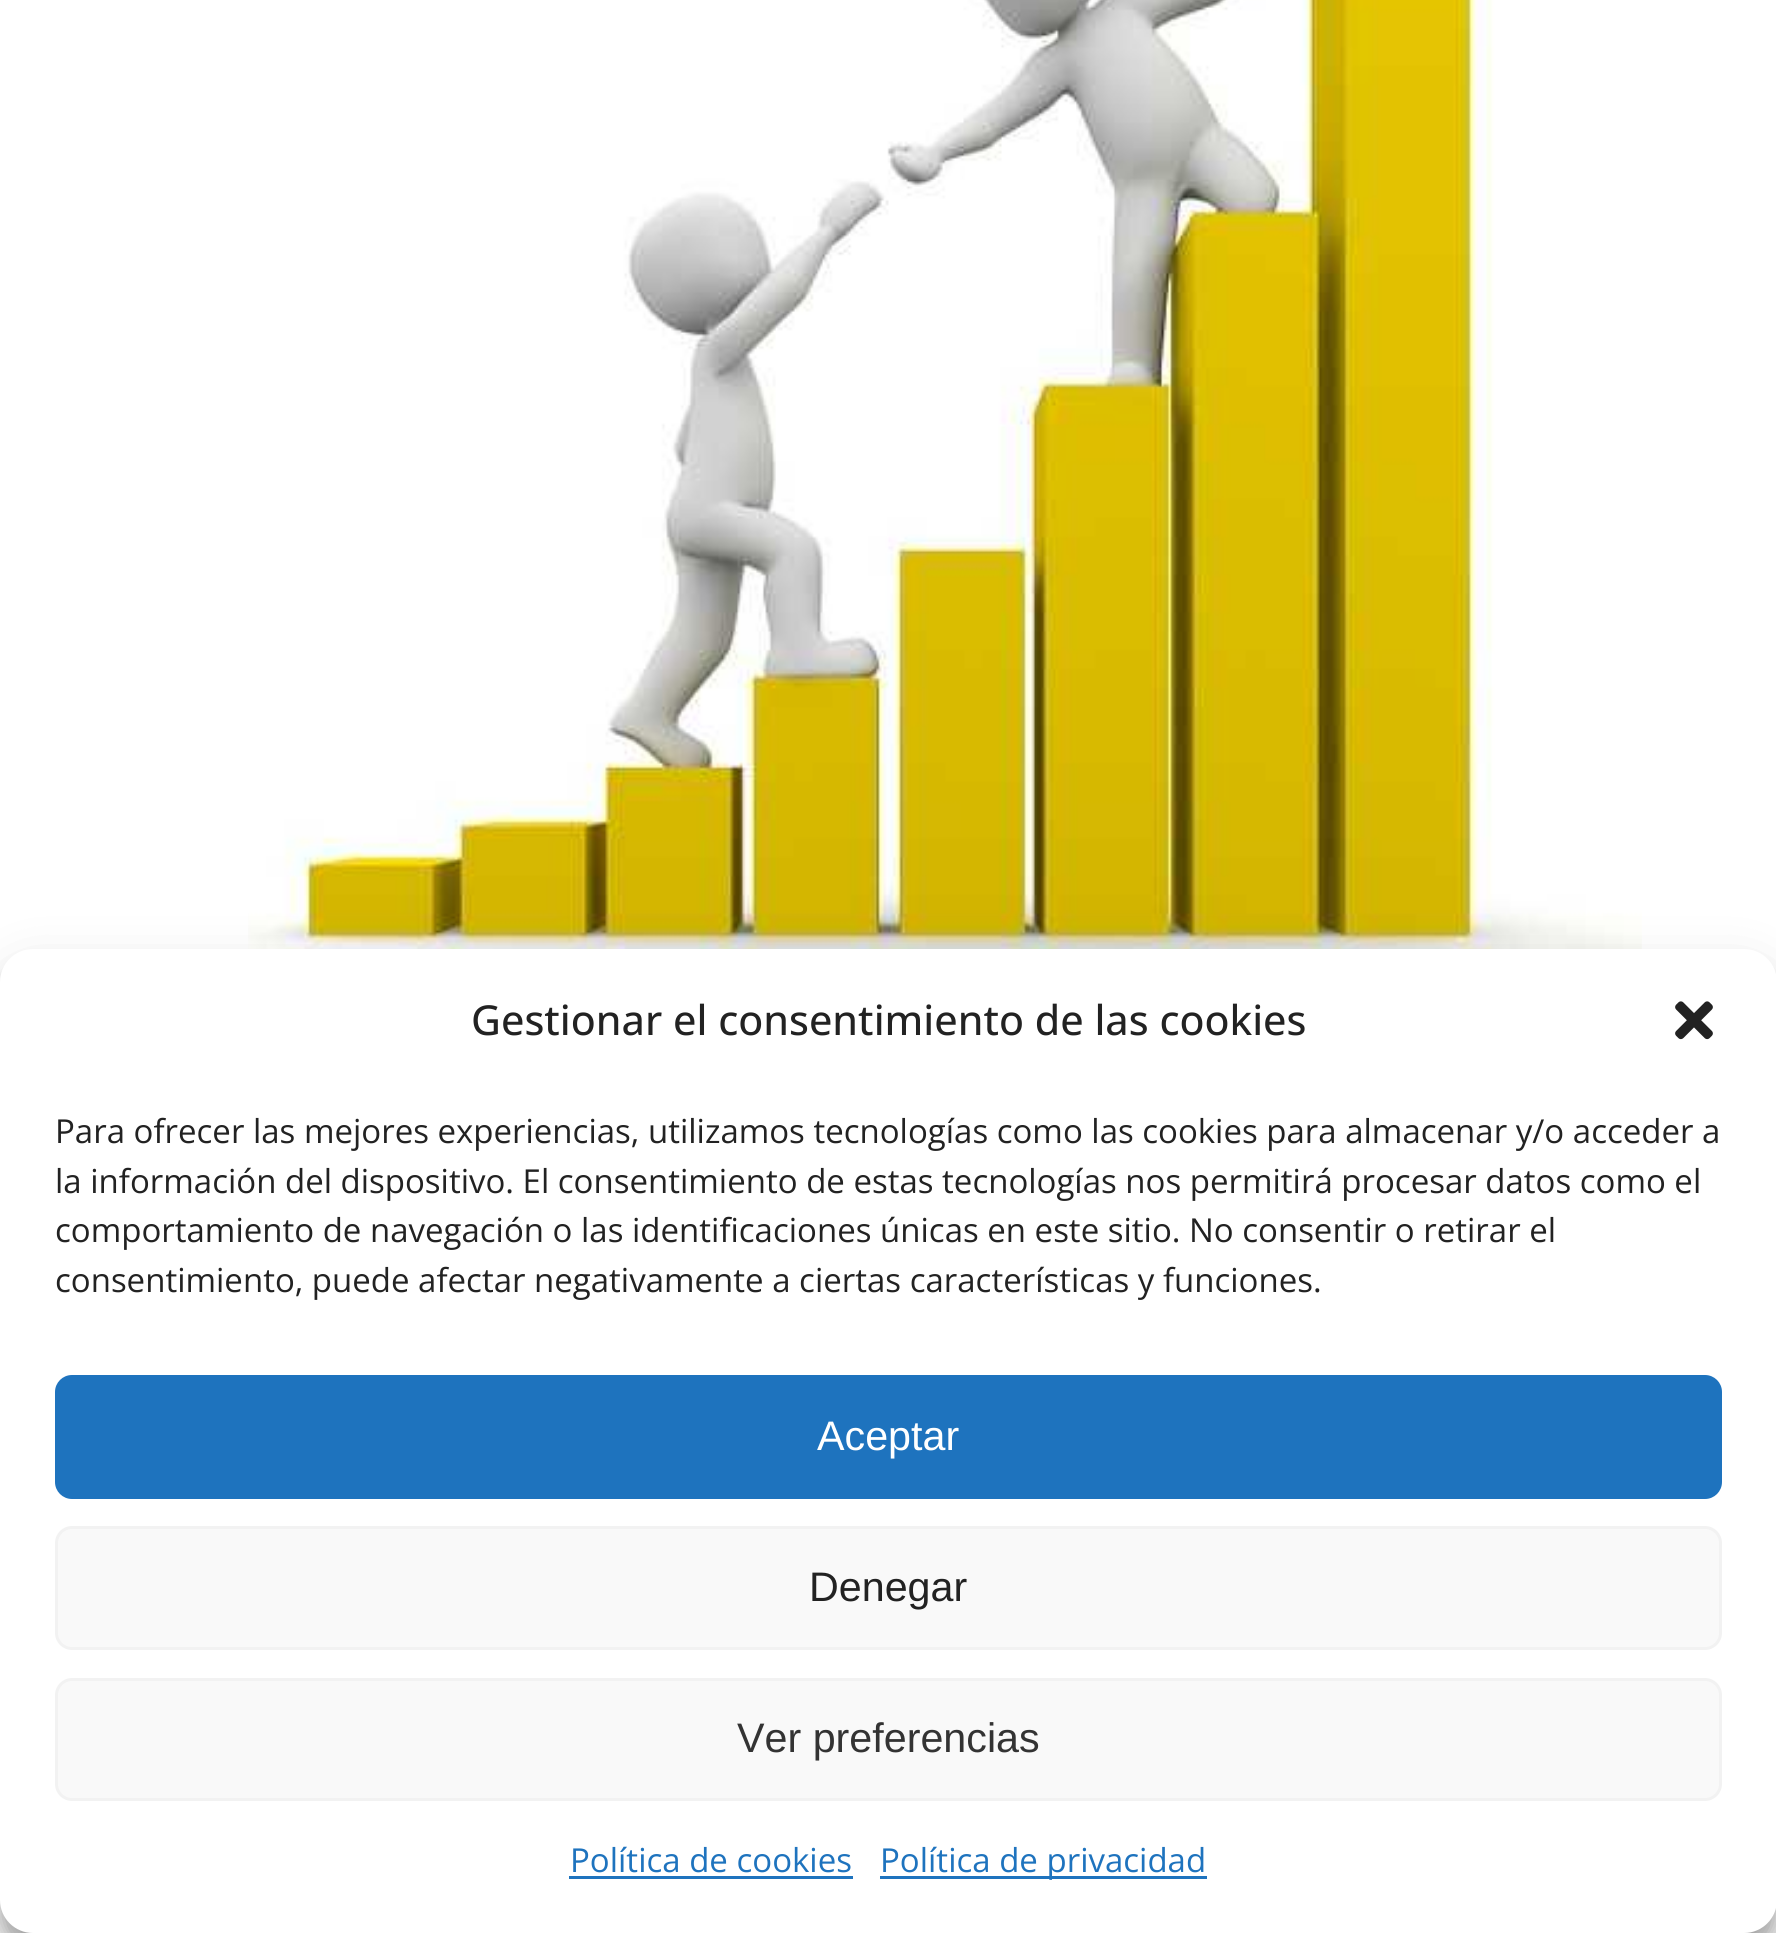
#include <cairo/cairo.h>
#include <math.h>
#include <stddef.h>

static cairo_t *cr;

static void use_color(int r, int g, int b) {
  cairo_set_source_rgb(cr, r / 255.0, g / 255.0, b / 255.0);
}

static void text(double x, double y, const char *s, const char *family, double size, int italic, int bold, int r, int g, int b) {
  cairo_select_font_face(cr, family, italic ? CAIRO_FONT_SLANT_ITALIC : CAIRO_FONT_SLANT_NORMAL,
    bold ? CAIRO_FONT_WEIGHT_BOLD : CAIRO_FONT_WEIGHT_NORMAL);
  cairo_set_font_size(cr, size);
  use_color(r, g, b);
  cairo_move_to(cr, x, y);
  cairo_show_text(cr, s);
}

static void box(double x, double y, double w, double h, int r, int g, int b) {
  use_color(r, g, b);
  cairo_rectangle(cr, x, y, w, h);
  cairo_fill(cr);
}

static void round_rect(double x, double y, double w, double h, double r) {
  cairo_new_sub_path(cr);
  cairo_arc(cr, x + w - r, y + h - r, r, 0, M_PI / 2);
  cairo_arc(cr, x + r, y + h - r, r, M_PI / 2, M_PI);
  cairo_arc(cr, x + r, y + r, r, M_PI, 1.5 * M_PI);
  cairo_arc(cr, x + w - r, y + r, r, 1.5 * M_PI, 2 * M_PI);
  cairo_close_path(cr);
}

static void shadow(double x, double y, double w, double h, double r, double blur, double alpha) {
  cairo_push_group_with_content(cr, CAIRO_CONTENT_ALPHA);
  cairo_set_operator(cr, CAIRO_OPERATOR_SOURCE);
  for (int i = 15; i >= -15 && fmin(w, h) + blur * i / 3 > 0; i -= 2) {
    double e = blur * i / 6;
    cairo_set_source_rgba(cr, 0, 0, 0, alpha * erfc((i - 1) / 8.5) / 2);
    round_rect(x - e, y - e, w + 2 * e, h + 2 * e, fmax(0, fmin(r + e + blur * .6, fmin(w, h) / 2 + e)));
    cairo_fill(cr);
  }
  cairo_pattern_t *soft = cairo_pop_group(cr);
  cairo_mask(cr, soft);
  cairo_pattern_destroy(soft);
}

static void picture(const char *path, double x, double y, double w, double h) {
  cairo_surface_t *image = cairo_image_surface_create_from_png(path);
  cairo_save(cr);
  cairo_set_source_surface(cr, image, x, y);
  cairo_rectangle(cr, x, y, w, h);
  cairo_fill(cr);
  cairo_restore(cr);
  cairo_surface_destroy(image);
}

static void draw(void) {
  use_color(255, 255, 255);
  cairo_paint(cr);
  picture("img_01.png", 248, 0, 1394, 949);
  use_color(0, 0, 0);
  shadow(0, 965, 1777, 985, 33, 8, 0.23);
  shadow(0, 976, 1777, 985, 33, 27.5, 0.19);
  use_color(255, 255, 255);
  round_rect(0, 949, 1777, 984, 33);
  cairo_fill(cr);
  picture("img_02.png", 1675, 1001, 38, 39);
  use_color(30, 115, 190);
  round_rect(56.5, 1376.5, 1664, 121, 15.5);
  cairo_fill_preserve(cr);
  cairo_set_line_width(cr, 3);
  cairo_stroke(cr);
  use_color(249, 249, 249);
  round_rect(56.5, 1527.5, 1664, 121, 15.5);
  cairo_fill_preserve(cr);
  use_color(242, 242, 242);
  cairo_stroke(cr);
  use_color(249, 249, 249);
  round_rect(56.5, 1679.5, 1664, 120, 15.5);
  cairo_fill_preserve(cr);
  use_color(242, 242, 242);
  cairo_stroke(cr);
  box(569, 1876, 284, 3, 30, 115, 190);
  box(880, 1876, 327, 3, 30, 115, 190);
  text(471, 1035, "Gestionar el consentimiento de las cookies", "Open Sans Medium", 41.25, 0, 0, 34, 34, 34);
  text(55, 1143, "Para ofrecer las mejores experiencias, utilizamos tecnologías como las cookies para almacenar y/o acceder a", "Open Sans", 33, 0, 0, 34, 34, 34);
  text(55, 1193, "la información del dispositivo. El consentimiento de estas tecnologías nos permitirá procesar datos como el", "Open Sans", 33, 0, 0, 34, 34, 34);
  text(55, 1242, "comportamiento de navegación o las identificaciones únicas en este sitio. No consentir o retirar el", "Open Sans", 33, 0, 0, 34, 34, 34);
  text(55, 1292, "consentimiento, puede afectar negativamente a ciertas características y funciones.", "Open Sans", 33, 0, 0, 34, 34, 34);
  text(817, 1450, "Aceptar", "Liberation Sans", 41.25, 0, 0, 255, 255, 255);
  text(809, 1601, "Denegar", "Liberation Sans", 41.25, 0, 0, 34, 34, 34);
  text(737, 1752, "Ver preferencias", "Liberation Sans", 41.25, 0, 0, 51, 51, 51);
  text(570, 1872, "Política de cookies", "Open Sans", 33, 0, 0, 30, 115, 190);
  text(880, 1872, "Política de privacidad", "Open Sans", 33, 0, 0, 30, 115, 190);
}

int main(void) {
  cairo_surface_t *surface = cairo_image_surface_create(CAIRO_FORMAT_RGB24, 1776, 1933);
  cr = cairo_create(surface);
  cairo_font_options_t *options = cairo_font_options_create();
  cairo_font_options_set_hint_metrics(options, CAIRO_HINT_METRICS_OFF);
  cairo_font_options_set_hint_style(options, CAIRO_HINT_STYLE_NONE);
  cairo_set_font_options(cr, options);
  cairo_set_miter_limit(cr, 4);
  draw();
  cairo_surface_write_to_png(surface, "out.png");
  cairo_font_options_destroy(options);
  cairo_destroy(cr);
  cairo_surface_destroy(surface);
  return 0;
}
